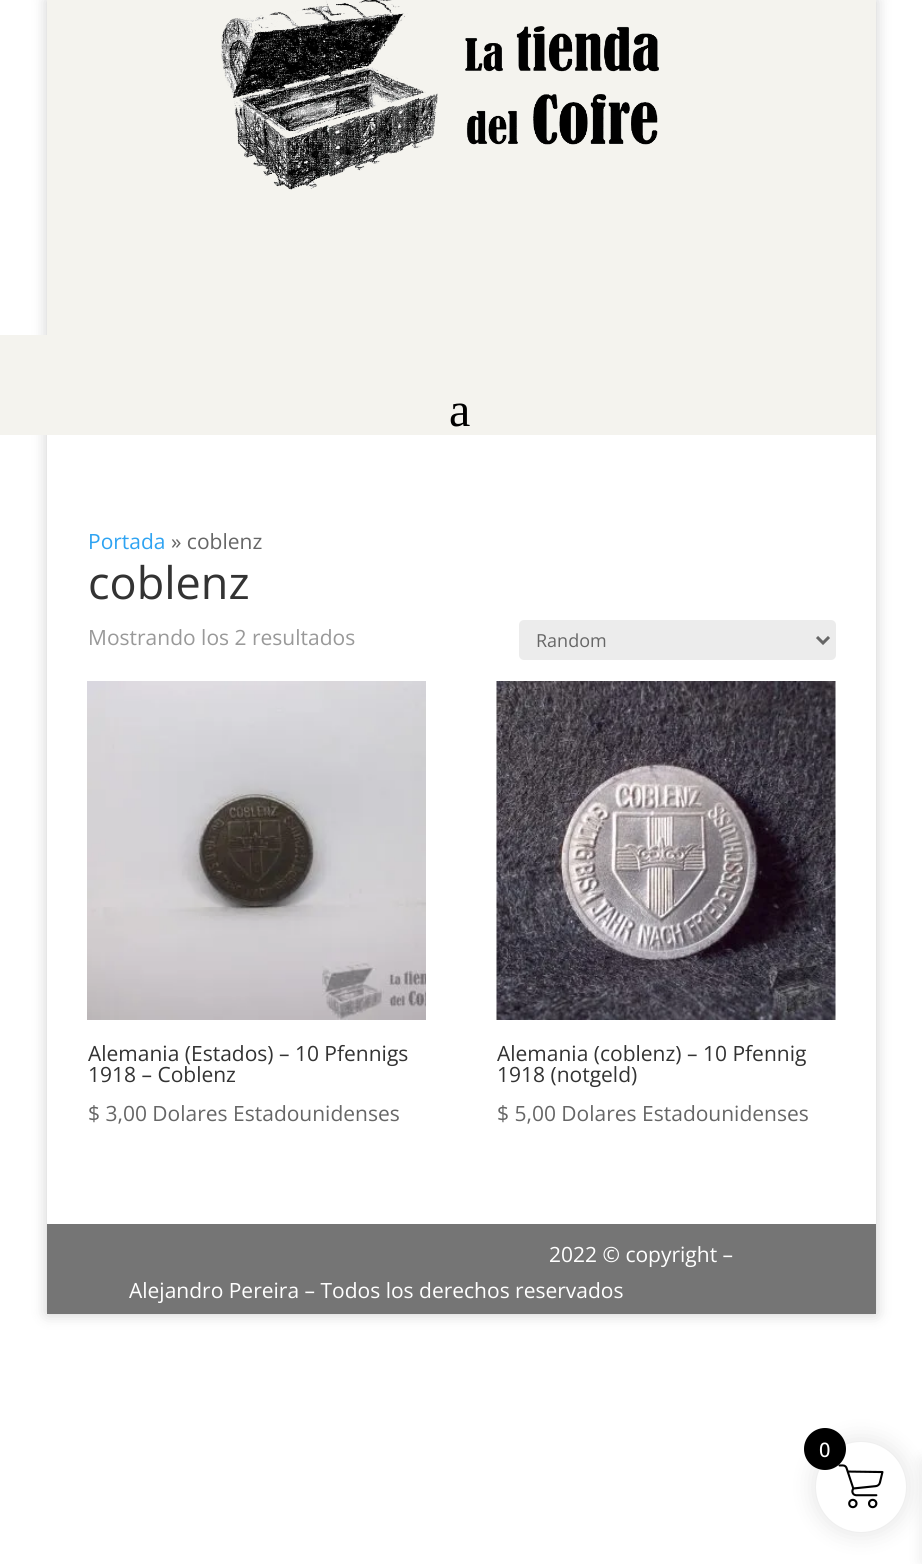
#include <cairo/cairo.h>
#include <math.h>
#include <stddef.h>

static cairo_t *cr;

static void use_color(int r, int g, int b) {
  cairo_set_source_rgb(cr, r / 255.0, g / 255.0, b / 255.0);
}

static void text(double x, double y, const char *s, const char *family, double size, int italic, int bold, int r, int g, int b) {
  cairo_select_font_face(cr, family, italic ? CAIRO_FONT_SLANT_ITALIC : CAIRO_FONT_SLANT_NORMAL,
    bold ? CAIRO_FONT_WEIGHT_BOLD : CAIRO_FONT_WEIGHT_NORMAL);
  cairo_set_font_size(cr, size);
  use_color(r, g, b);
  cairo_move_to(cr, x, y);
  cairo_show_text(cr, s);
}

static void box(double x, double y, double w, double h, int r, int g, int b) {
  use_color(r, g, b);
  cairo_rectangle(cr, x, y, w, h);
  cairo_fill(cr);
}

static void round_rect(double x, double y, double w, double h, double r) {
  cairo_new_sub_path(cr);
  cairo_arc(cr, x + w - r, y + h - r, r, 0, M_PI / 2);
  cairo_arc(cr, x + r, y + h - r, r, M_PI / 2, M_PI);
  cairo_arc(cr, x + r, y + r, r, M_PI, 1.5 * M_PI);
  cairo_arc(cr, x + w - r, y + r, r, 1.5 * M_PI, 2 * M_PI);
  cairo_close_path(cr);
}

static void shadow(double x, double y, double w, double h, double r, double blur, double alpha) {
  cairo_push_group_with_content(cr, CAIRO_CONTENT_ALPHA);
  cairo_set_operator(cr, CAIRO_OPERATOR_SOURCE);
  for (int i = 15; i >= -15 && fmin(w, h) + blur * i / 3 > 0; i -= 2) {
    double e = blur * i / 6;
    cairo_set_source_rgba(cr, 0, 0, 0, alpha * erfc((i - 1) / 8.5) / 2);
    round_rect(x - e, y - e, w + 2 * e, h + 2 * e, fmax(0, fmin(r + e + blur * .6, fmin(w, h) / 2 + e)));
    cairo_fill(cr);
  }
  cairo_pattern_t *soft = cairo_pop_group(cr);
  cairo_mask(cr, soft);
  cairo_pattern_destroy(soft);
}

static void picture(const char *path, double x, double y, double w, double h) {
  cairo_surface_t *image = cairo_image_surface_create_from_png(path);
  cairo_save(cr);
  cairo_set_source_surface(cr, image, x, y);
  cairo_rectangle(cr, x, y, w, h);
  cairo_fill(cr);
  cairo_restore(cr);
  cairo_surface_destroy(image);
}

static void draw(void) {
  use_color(255, 255, 255);
  cairo_paint(cr);
  cairo_save(cr);
  cairo_set_fill_rule(cr, CAIRO_FILL_RULE_EVEN_ODD);
  cairo_new_path(cr);
  cairo_move_to(cr, 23, 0);
  cairo_line_to(cr, 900, 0);
  cairo_line_to(cr, 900, 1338);
  cairo_line_to(cr, 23, 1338);
  cairo_close_path(cr);
  cairo_move_to(cr, 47, 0);
  cairo_line_to(cr, 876, 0);
  cairo_line_to(cr, 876, 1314);
  cairo_line_to(cr, 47, 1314);
  cairo_close_path(cr);
  cairo_clip(cr);
  use_color(0, 0, 0);
  shadow(47, 0, 829, 1314, 0, 7.5, 0.2);
  cairo_restore(cr);
  box(47, 0, 829, 435, 244, 243, 238);
  picture("img_01.png", 221, 0, 438, 190);
  box(0, 335, 47, 100, 244, 243, 238);
  use_color(236, 236, 236);
  round_rect(519, 620, 317, 40, 5);
  cairo_fill(cr);
  cairo_new_path(cr);
  cairo_move_to(cr, 817, 637);
  cairo_line_to(cr, 823, 643);
  cairo_line_to(cr, 829, 637);
  use_color(102, 102, 102);
  cairo_set_line_width(cr, 3);
  cairo_stroke(cr);
  picture("img_02.png", 87, 681, 339, 339);
  picture("img_03.png", 496, 681, 340, 339);
  box(47, 1224, 829, 90, 117, 117, 117);
  use_color(0, 0, 0);
  shadow(813, 1439, 96, 96, 48, 11, 0.1);
  shadow(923, 1461, 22, 102, 0, 7.5, 0.1);
  use_color(255, 255, 255);
  cairo_arc(cr, 861, 1487, 45, 0, 2 * M_PI);
  cairo_fill(cr);
  picture("img_04.png", 838, 1464, 46, 45);
  use_color(0, 0, 0);
  cairo_arc(cr, 825, 1449, 21, 0, 2 * M_PI);
  cairo_fill(cr);
  text(449, 426, "a", "Liberation Serif", 48, 0, 0, 0, 0, 0);
  text(88, 549, "Portada", "Open Sans", 21, 0, 0, 46, 163, 242);
  text(171, 549, "» coblenz", "Open Sans", 21, 0, 0, 102, 102, 102);
  text(88, 599, "coblenz", "Open Sans", 45, 0, 0, 51, 51, 51);
  text(88, 645, "Mostrando los 2 resultados", "Open Sans", 21, 0, 0, 153, 153, 153);
  text(536, 647, "Random", "Open Sans", 18, 0, 0, 102, 102, 102);
  text(88, 1061, "Alemania (Estados) – 10 Pfennigs", "Open Sans", 21, 0, 0, 51, 51, 51);
  text(88, 1082, "1918 – Coblenz", "Open Sans", 21, 0, 0, 51, 51, 51);
  text(88, 1121, "$ 3,00 Dolares Estadounidenses", "Open Sans", 21, 0, 0, 102, 102, 102);
  text(497, 1061, "Alemania (coblenz) – 10 Pfennig", "Open Sans", 21, 0, 0, 51, 51, 51);
  text(497, 1082, "1918 (notgeld)", "Open Sans", 21, 0, 0, 51, 51, 51);
  text(497, 1121, "$ 5,00 Dolares Estadounidenses", "Open Sans", 21, 0, 0, 102, 102, 102);
  text(549, 1262, "2022 © copyright –", "Open Sans", 21, 0, 0, 255, 255, 255);
  text(129, 1298, "Alejandro Pereira – Todos los derechos reservados", "Open Sans", 21, 0, 0, 255, 255, 255);
  text(819, 1457, "0", "Open Sans Medium", 20, 0, 0, 255, 255, 255);
}

int main(void) {
  cairo_surface_t *surface = cairo_image_surface_create(CAIRO_FORMAT_RGB24, 922, 1564);
  cr = cairo_create(surface);
  cairo_font_options_t *options = cairo_font_options_create();
  cairo_font_options_set_hint_metrics(options, CAIRO_HINT_METRICS_OFF);
  cairo_font_options_set_hint_style(options, CAIRO_HINT_STYLE_NONE);
  cairo_set_font_options(cr, options);
  cairo_set_miter_limit(cr, 4);
  draw();
  cairo_surface_write_to_png(surface, "out.png");
  cairo_font_options_destroy(options);
  cairo_destroy(cr);
  cairo_surface_destroy(surface);
  return 0;
}
